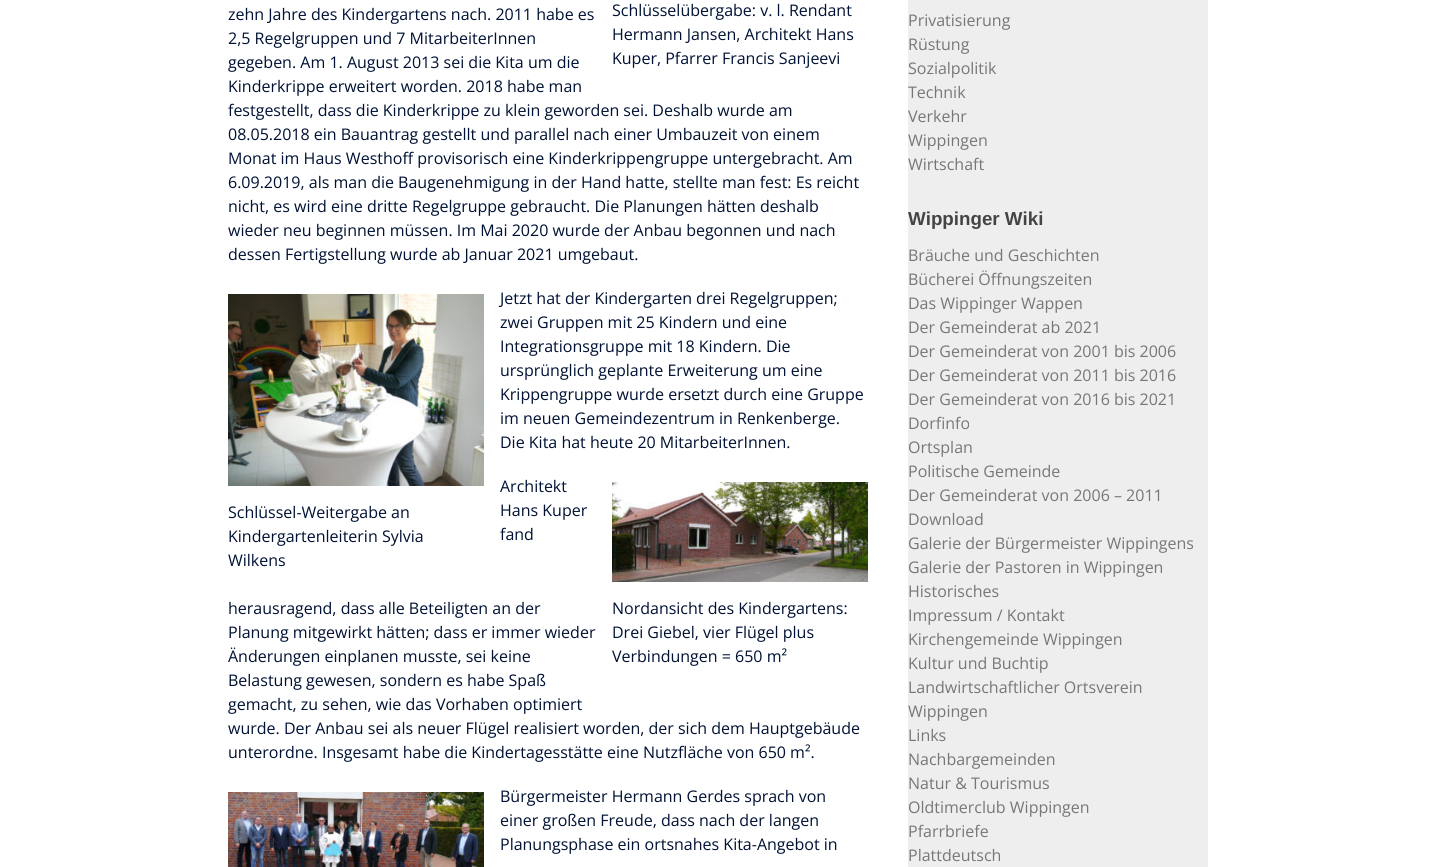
#include <cairo/cairo.h>
#include <math.h>
#include <stddef.h>

static cairo_t *cr;

static void use_color(int r, int g, int b) {
  cairo_set_source_rgb(cr, r / 255.0, g / 255.0, b / 255.0);
}

static void text(double x, double y, const char *s, const char *family, double size, int italic, int bold, int r, int g, int b) {
  cairo_select_font_face(cr, family, italic ? CAIRO_FONT_SLANT_ITALIC : CAIRO_FONT_SLANT_NORMAL,
    bold ? CAIRO_FONT_WEIGHT_BOLD : CAIRO_FONT_WEIGHT_NORMAL);
  cairo_set_font_size(cr, size);
  use_color(r, g, b);
  cairo_move_to(cr, x, y);
  cairo_show_text(cr, s);
}

static void box(double x, double y, double w, double h, int r, int g, int b) {
  use_color(r, g, b);
  cairo_rectangle(cr, x, y, w, h);
  cairo_fill(cr);
}

static void picture(const char *path, double x, double y, double w, double h) {
  cairo_surface_t *image = cairo_image_surface_create_from_png(path);
  cairo_save(cr);
  cairo_set_source_surface(cr, image, x, y);
  cairo_rectangle(cr, x, y, w, h);
  cairo_fill(cr);
  cairo_restore(cr);
  cairo_surface_destroy(image);
}

static void draw(void) {
  use_color(255, 255, 255);
  cairo_paint(cr);
  picture("img_01.png", 228, 294, 256, 192);
  picture("img_02.png", 612, 482, 256, 100);
  picture("img_03.png", 228, 792, 256, 75);
  box(908, 0, 300, 867, 238, 238, 238);
  text(612, 16, "Schlüsselübergabe: v. l. Rendant", "Open Sans", 16, 0, 0, 0, 17, 51);
  text(612, 40, "Hermann Jansen, Architekt Hans", "Open Sans", 16, 0, 0, 0, 17, 51);
  text(612, 64, "Kuper, Pfarrer Francis Sanjeevi", "Open Sans", 16, 0, 0, 0, 17, 51);
  text(228, 20, "zehn Jahre des Kindergartens nach. 2011 habe es", "Open Sans", 16, 0, 0, 0, 17, 51);
  text(228, 44, "2,5 Regelgruppen und 7 MitarbeiterInnen", "Open Sans", 16, 0, 0, 0, 17, 51);
  text(228, 68, "gegeben. Am 1. August 2013 sei die Kita um die", "Open Sans", 16, 0, 0, 0, 17, 51);
  text(228, 92, "Kinderkrippe erweitert worden. 2018 habe man", "Open Sans", 16, 0, 0, 0, 17, 51);
  text(228, 116, "festgestellt, dass die Kinderkrippe zu klein geworden sei. Deshalb wurde am", "Open Sans", 16, 0, 0, 0, 17, 51);
  text(228, 140, "08.05.2018 ein Bauantrag gestellt und parallel nach einer Umbauzeit von einem", "Open Sans", 16, 0, 0, 0, 17, 51);
  text(228, 164, "Monat im Haus Westhoff provisorisch eine Kinderkrippengruppe untergebracht. Am", "Open Sans", 16, 0, 0, 0, 17, 51);
  text(228, 188, "6.09.2019, als man die Baugenehmigung in der Hand hatte, stellte man fest: Es reicht", "Open Sans", 16, 0, 0, 0, 17, 51);
  text(228, 212, "nicht, es wird eine dritte Regelgruppe gebraucht. Die Planungen hätten deshalb", "Open Sans", 16, 0, 0, 0, 17, 51);
  text(228, 236, "wieder neu beginnen müssen. Im Mai 2020 wurde der Anbau begonnen und nach", "Open Sans", 16, 0, 0, 0, 17, 51);
  text(228, 260, "dessen Fertigstellung wurde ab Januar 2021 umgebaut.", "Open Sans", 16, 0, 0, 0, 17, 51);
  text(500, 304, "Jetzt hat der Kindergarten drei Regelgruppen;", "Open Sans", 16, 0, 0, 0, 17, 51);
  text(500, 328, "zwei Gruppen mit 25 Kindern und eine", "Open Sans", 16, 0, 0, 0, 17, 51);
  text(500, 352, "Integrationsgruppe mit 18 Kindern. Die", "Open Sans", 16, 0, 0, 0, 17, 51);
  text(500, 376, "ursprünglich geplante Erweiterung um eine", "Open Sans", 16, 0, 0, 0, 17, 51);
  text(500, 400, "Krippengruppe wurde ersetzt durch eine Gruppe", "Open Sans", 16, 0, 0, 0, 17, 51);
  text(500, 424, "im neuen Gemeindezentrum in Renkenberge.", "Open Sans", 16, 0, 0, 0, 17, 51);
  text(500, 448, "Die Kita hat heute 20 MitarbeiterInnen.", "Open Sans", 16, 0, 0, 0, 17, 51);
  text(500, 492, "Architekt", "Open Sans", 16, 0, 0, 0, 17, 51);
  text(500, 516, "Hans Kuper", "Open Sans", 16, 0, 0, 0, 17, 51);
  text(500, 540, "fand", "Open Sans", 16, 0, 0, 0, 17, 51);
  text(228, 614, "herausragend, dass alle Beteiligten an der", "Open Sans", 16, 0, 0, 0, 17, 51);
  text(228, 638, "Planung mitgewirkt hätten; dass er immer wieder", "Open Sans", 16, 0, 0, 0, 17, 51);
  text(228, 662, "Änderungen einplanen musste, sei keine", "Open Sans", 16, 0, 0, 0, 17, 51);
  text(228, 686, "Belastung gewesen, sondern es habe Spaß", "Open Sans", 16, 0, 0, 0, 17, 51);
  text(228, 710, "gemacht, zu sehen, wie das Vorhaben optimiert", "Open Sans", 16, 0, 0, 0, 17, 51);
  text(228, 734, "wurde. Der Anbau sei als neuer Flügel realisiert worden, der sich dem Hauptgebäude", "Open Sans", 16, 0, 0, 0, 17, 51);
  text(228, 758, "unterordne. Insgesamt habe die Kindertagesstätte eine Nutzfläche von 650 m².", "Open Sans", 16, 0, 0, 0, 17, 51);
  text(228, 518, "Schlüssel-Weitergabe an", "Open Sans", 16, 0, 0, 0, 17, 51);
  text(228, 542, "Kindergartenleiterin Sylvia", "Open Sans", 16, 0, 0, 0, 17, 51);
  text(228, 566, "Wilkens", "Open Sans", 16, 0, 0, 0, 17, 51);
  text(612, 614, "Nordansicht des Kindergartens:", "Open Sans", 16, 0, 0, 0, 17, 51);
  text(612, 638, "Drei Giebel, vier Flügel plus", "Open Sans", 16, 0, 0, 0, 17, 51);
  text(612, 662, "Verbindungen = 650 m²", "Open Sans", 16, 0, 0, 0, 17, 51);
  text(500, 802, "Bürgermeister Hermann Gerdes sprach von", "Open Sans", 16, 0, 0, 0, 17, 51);
  text(500, 826, "einer großen Freude, dass nach der langen", "Open Sans", 16, 0, 0, 0, 17, 51);
  text(500, 850, "Planungsphase ein ortsnahes Kita-Angebot in", "Open Sans", 16, 0, 0, 0, 17, 51);
  text(908, 26, "Privatisierung", "Open Sans", 16, 0, 0, 119, 119, 119);
  text(908, 50, "Rüstung", "Open Sans", 16, 0, 0, 119, 119, 119);
  text(908, 74, "Sozialpolitik", "Open Sans", 16, 0, 0, 119, 119, 119);
  text(908, 98, "Technik", "Open Sans", 16, 0, 0, 119, 119, 119);
  text(908, 122, "Verkehr", "Open Sans", 16, 0, 0, 119, 119, 119);
  text(908, 146, "Wippingen", "Open Sans", 16, 0, 0, 119, 119, 119);
  text(908, 170, "Wirtschaft", "Open Sans", 16, 0, 0, 119, 119, 119);
  text(908, 225, "Wippinger Wiki", "Liberation Sans", 18.75, 0, 1, 68, 68, 68);
  text(908, 261, "Bräuche und Geschichten", "Open Sans", 16, 0, 0, 119, 119, 119);
  text(908, 285, "Bücherei Öffnungszeiten", "Open Sans", 16, 0, 0, 119, 119, 119);
  text(908, 309, "Das Wippinger Wappen", "Open Sans", 16, 0, 0, 119, 119, 119);
  text(908, 333, "Der Gemeinderat ab 2021", "Open Sans", 16, 0, 0, 119, 119, 119);
  text(908, 357, "Der Gemeinderat von 2001 bis 2006", "Open Sans", 16, 0, 0, 119, 119, 119);
  text(908, 381, "Der Gemeinderat von 2011 bis 2016", "Open Sans", 16, 0, 0, 119, 119, 119);
  text(908, 405, "Der Gemeinderat von 2016 bis 2021", "Open Sans", 16, 0, 0, 119, 119, 119);
  text(908, 429, "Dorfinfo", "Open Sans", 16, 0, 0, 119, 119, 119);
  text(908, 453, "Ortsplan", "Open Sans", 16, 0, 0, 119, 119, 119);
  text(908, 477, "Politische Gemeinde", "Open Sans", 16, 0, 0, 119, 119, 119);
  text(908, 501, "Der Gemeinderat von 2006 – 2011", "Open Sans", 16, 0, 0, 119, 119, 119);
  text(908, 525, "Download", "Open Sans", 16, 0, 0, 119, 119, 119);
  text(908, 549, "Galerie der Bürgermeister Wippingens", "Open Sans", 16, 0, 0, 119, 119, 119);
  text(908, 573, "Galerie der Pastoren in Wippingen", "Open Sans", 16, 0, 0, 119, 119, 119);
  text(908, 597, "Historisches", "Open Sans", 16, 0, 0, 119, 119, 119);
  text(908, 621, "Impressum / Kontakt", "Open Sans", 16, 0, 0, 119, 119, 119);
  text(908, 645, "Kirchengemeinde Wippingen", "Open Sans", 16, 0, 0, 119, 119, 119);
  text(908, 669, "Kultur und Buchtip", "Open Sans", 16, 0, 0, 119, 119, 119);
  text(908, 693, "Landwirtschaftlicher Ortsverein", "Open Sans", 16, 0, 0, 119, 119, 119);
  text(908, 717, "Wippingen", "Open Sans", 16, 0, 0, 119, 119, 119);
  text(908, 741, "Links", "Open Sans", 16, 0, 0, 119, 119, 119);
  text(908, 765, "Nachbargemeinden", "Open Sans", 16, 0, 0, 119, 119, 119);
  text(908, 789, "Natur & Tourismus", "Open Sans", 16, 0, 0, 119, 119, 119);
  text(908, 813, "Oldtimerclub Wippingen", "Open Sans", 16, 0, 0, 119, 119, 119);
  text(908, 837, "Pfarrbriefe", "Open Sans", 16, 0, 0, 119, 119, 119);
  text(908, 861, "Plattdeutsch", "Open Sans", 16, 0, 0, 119, 119, 119);
}

int main(void) {
  cairo_surface_t *surface = cairo_image_surface_create(CAIRO_FORMAT_RGB24, 1436, 867);
  cr = cairo_create(surface);
  cairo_font_options_t *options = cairo_font_options_create();
  cairo_font_options_set_hint_metrics(options, CAIRO_HINT_METRICS_OFF);
  cairo_font_options_set_hint_style(options, CAIRO_HINT_STYLE_NONE);
  cairo_set_font_options(cr, options);
  cairo_set_miter_limit(cr, 4);
  draw();
  cairo_surface_write_to_png(surface, "out.png");
  cairo_font_options_destroy(options);
  cairo_destroy(cr);
  cairo_surface_destroy(surface);
  return 0;
}
